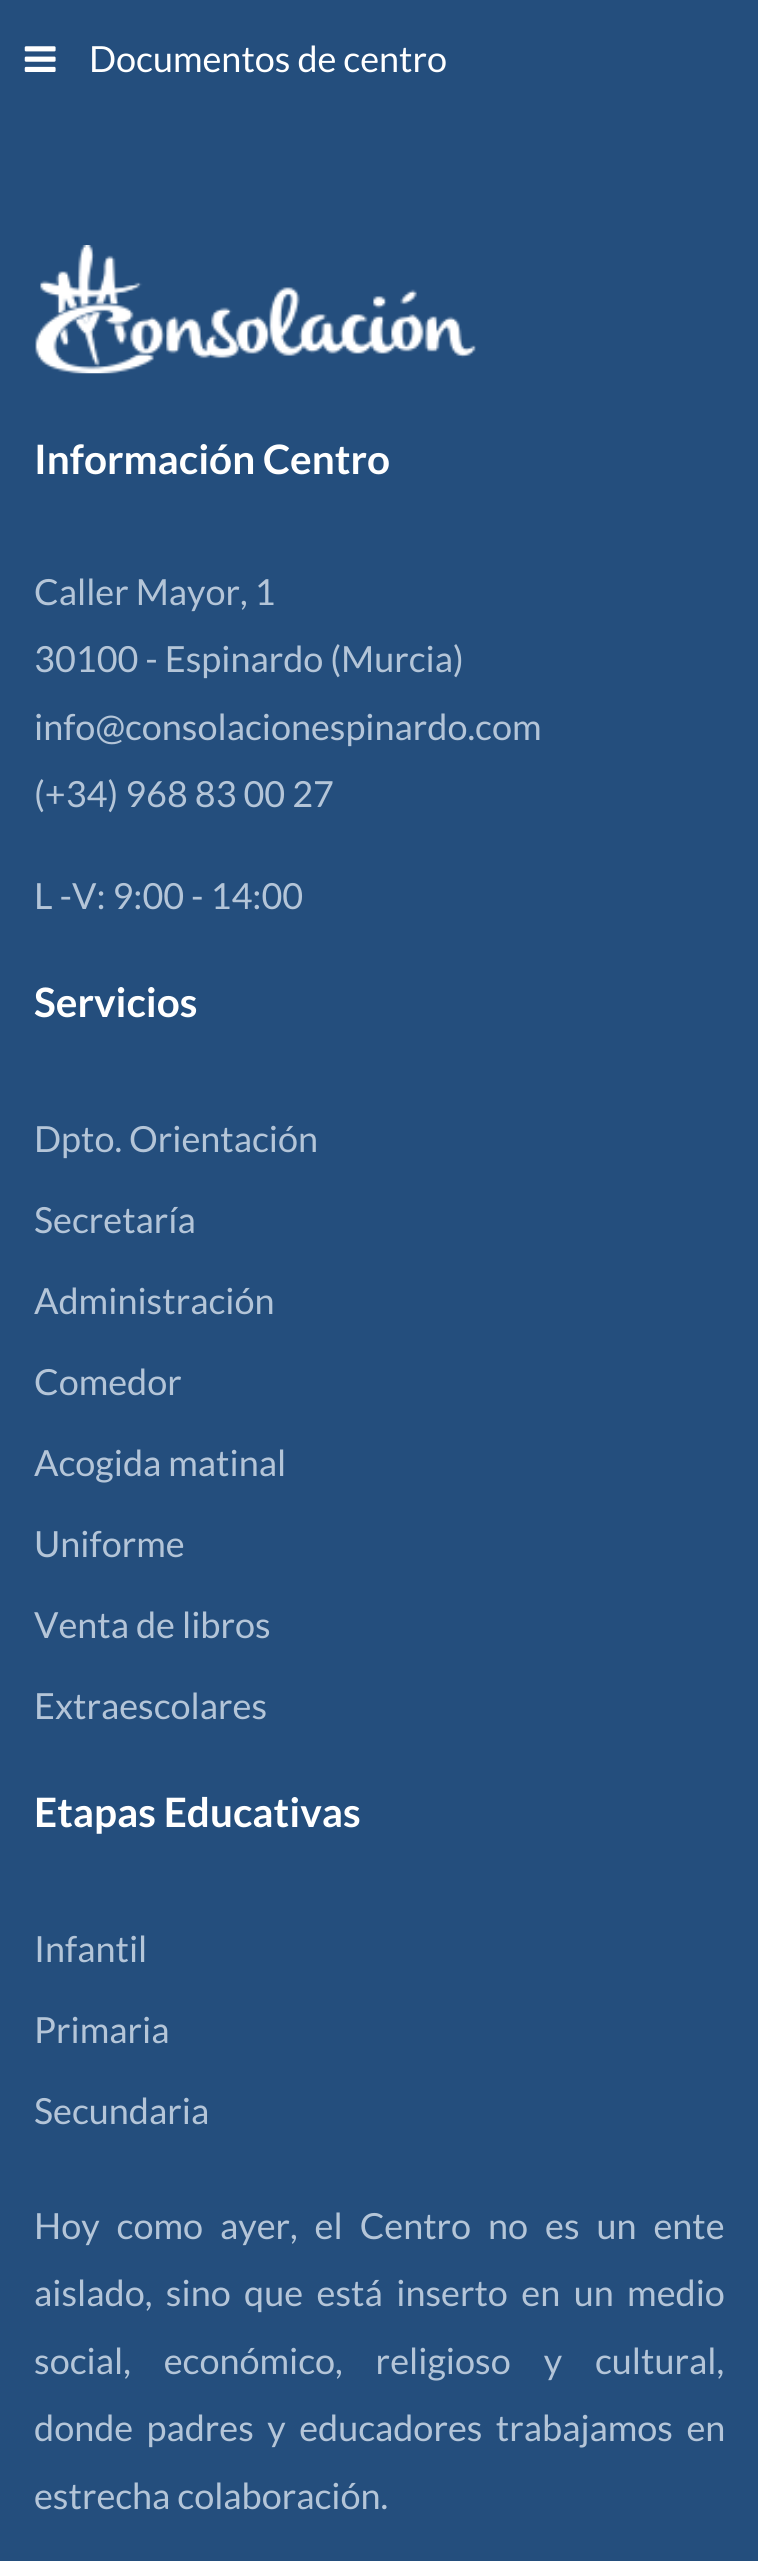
#include <cairo/cairo.h>
#include <math.h>
#include <stddef.h>

static cairo_t *cr;

static void use_color(int r, int g, int b) {
  cairo_set_source_rgb(cr, r / 255.0, g / 255.0, b / 255.0);
}

static void text(double x, double y, const char *s, const char *family, double size, int italic, int bold, int r, int g, int b) {
  cairo_select_font_face(cr, family, italic ? CAIRO_FONT_SLANT_ITALIC : CAIRO_FONT_SLANT_NORMAL,
    bold ? CAIRO_FONT_WEIGHT_BOLD : CAIRO_FONT_WEIGHT_NORMAL);
  cairo_set_font_size(cr, size);
  use_color(r, g, b);
  cairo_move_to(cr, x, y);
  cairo_show_text(cr, s);
}

static void spaced_text(double x, double y, const char *s, double letter, double word) {
  cairo_move_to(cr, x, y);
  while (*s) {
    char ch[5] = {0};
    int n = 0;
    do ch[n++] = *s++; while ((*s & 0xC0) == 0x80);
    cairo_show_text(cr, ch);
    cairo_rel_move_to(cr, letter + word * (*ch == ' '), 0);
  }
}

static void picture(const char *path, double x, double y, double w, double h) {
  cairo_surface_t *image = cairo_image_surface_create_from_png(path);
  cairo_save(cr);
  cairo_set_source_surface(cr, image, x, y);
  cairo_rectangle(cr, x, y, w, h);
  cairo_fill(cr);
  cairo_restore(cr);
  cairo_surface_destroy(image);
}

static void draw(void) {
  use_color(36, 78, 125);
  cairo_paint(cr);
  picture("img_01.png", 24, 46, 32, 26);
  picture("img_02.png", 35, 245, 441, 129);
  text(89, 72, "Documentos de centro", "Lato", 36, 0, 0, 255, 255, 255);
  text(34, 474, "Información Centro", "Lato", 40.5, 0, 1, 255, 255, 255);
  text(34, 605, "Caller Mayor, 1", "Lato", 36, 0, 0, 180, 197, 216);
  text(34, 672, "30100 - Espinardo (Murcia)", "Lato", 36, 0, 0, 180, 197, 216);
  text(34, 740, "info@consolacionespinardo.com", "Lato", 36, 0, 0, 180, 197, 216);
  text(34, 807, "(+34) 968 83 00 27", "Lato", 36, 0, 0, 180, 197, 216);
  text(34, 909, "L -V: 9:00 - 14:00", "Lato", 36, 0, 0, 180, 197, 216);
  text(34, 1017, "Servicios", "Lato", 40.5, 0, 1, 255, 255, 255);
  text(34, 1152, "Dpto. Orientación", "Lato", 36, 0, 0, 180, 197, 216);
  text(34, 1233, "Secretaría", "Lato", 36, 0, 0, 180, 197, 216);
  text(34, 1314, "Administración", "Lato", 36, 0, 0, 180, 197, 216);
  text(34, 1395, "Comedor", "Lato", 36, 0, 0, 180, 197, 216);
  text(34, 1476, "Acogida matinal", "Lato", 36, 0, 0, 180, 197, 216);
  text(34, 1557, "Uniforme", "Lato", 36, 0, 0, 180, 197, 216);
  text(34, 1638, "Venta de libros", "Lato", 36, 0, 0, 180, 197, 216);
  text(34, 1719, "Extraescolares", "Lato", 36, 0, 0, 180, 197, 216);
  text(34, 1827, "Etapas Educativas", "Lato", 40.5, 0, 1, 255, 255, 255);
  text(34, 1962, "Infantil", "Lato", 36, 0, 0, 180, 197, 216);
  text(34, 2043, "Primaria", "Lato", 36, 0, 0, 180, 197, 216);
  text(34, 2124, "Secundaria", "Lato", 36, 0, 0, 180, 197, 216);
  spaced_text(34, 2239, "Hoy como ayer, el Centro no es un ente", 0, 10);
  spaced_text(34, 2306, "aislado, sino que está inserto en un medio", 0, 6.5);
  spaced_text(34, 2374, "social, económico, religioso y cultural,", 0, 26);
  spaced_text(34, 2441, "donde padres y educadores trabajamos en", 0, 6.5);
  text(34, 2509, "estrecha colaboración.", "Lato", 36, 0, 0, 180, 197, 216);
}

int main(void) {
  cairo_surface_t *surface = cairo_image_surface_create(CAIRO_FORMAT_RGB24, 758, 2561);
  cr = cairo_create(surface);
  cairo_font_options_t *options = cairo_font_options_create();
  cairo_font_options_set_hint_metrics(options, CAIRO_HINT_METRICS_OFF);
  cairo_font_options_set_hint_style(options, CAIRO_HINT_STYLE_NONE);
  cairo_set_font_options(cr, options);
  cairo_set_miter_limit(cr, 4);
  draw();
  cairo_surface_write_to_png(surface, "out.png");
  cairo_font_options_destroy(options);
  cairo_destroy(cr);
  cairo_surface_destroy(surface);
  return 0;
}
